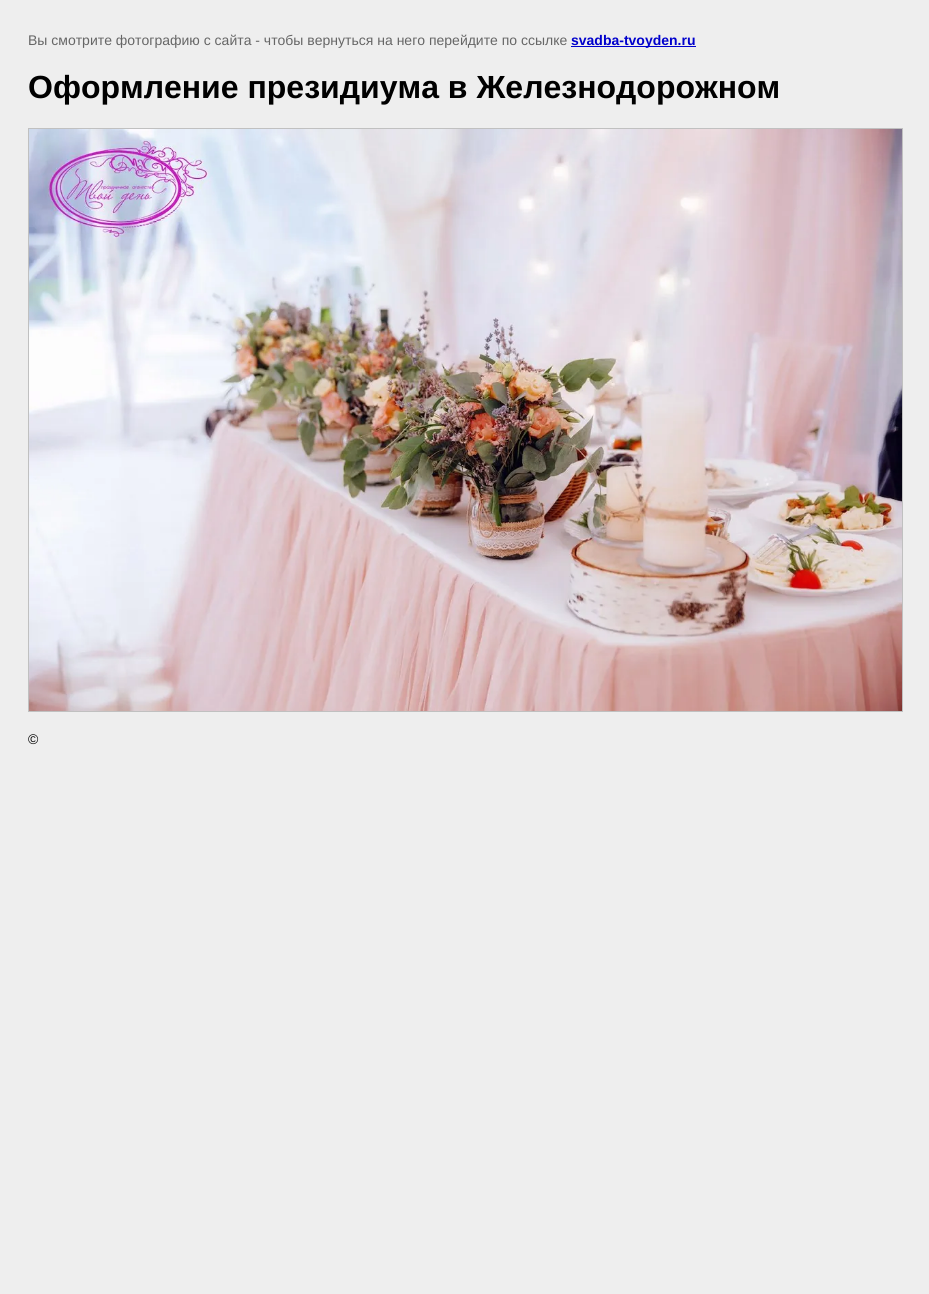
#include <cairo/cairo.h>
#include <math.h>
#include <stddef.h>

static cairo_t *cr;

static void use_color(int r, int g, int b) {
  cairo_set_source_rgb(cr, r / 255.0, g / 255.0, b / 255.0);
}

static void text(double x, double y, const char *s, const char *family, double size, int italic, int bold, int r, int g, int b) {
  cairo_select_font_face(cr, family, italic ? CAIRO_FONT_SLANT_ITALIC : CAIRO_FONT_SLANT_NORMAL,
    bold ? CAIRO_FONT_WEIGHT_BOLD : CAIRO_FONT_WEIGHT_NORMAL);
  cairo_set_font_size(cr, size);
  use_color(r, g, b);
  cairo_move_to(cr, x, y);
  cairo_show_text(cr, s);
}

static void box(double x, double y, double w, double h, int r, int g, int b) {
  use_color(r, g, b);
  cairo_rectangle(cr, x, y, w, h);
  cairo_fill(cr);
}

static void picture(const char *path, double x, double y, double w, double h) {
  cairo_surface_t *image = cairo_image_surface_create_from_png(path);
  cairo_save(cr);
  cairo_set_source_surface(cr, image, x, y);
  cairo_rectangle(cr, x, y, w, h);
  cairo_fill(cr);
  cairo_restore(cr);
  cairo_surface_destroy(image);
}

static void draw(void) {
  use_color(238, 238, 238);
  cairo_paint(cr);
  box(571, 46, 125, 1, 0, 0, 204);
  cairo_rectangle(cr, 28.5, 128.5, 874, 583);
  use_color(192, 192, 192);
  cairo_set_line_width(cr, 1);
  cairo_stroke(cr);
  picture("img_01.png", 29, 129, 873, 582);
  text(28, 45, "Вы смотрите фотографию с сайта - чтобы вернуться на него перейдите по ссылке", "Liberation Sans", 14, 0, 0, 102, 102, 102);
  text(571, 45, "svadba-tvoyden.ru", "Liberation Sans", 14, 0, 1, 0, 0, 204);
  text(28, 98, "Оформление президиума в Железнодорожном", "Liberation Sans", 32, 0, 1, 0, 0, 0);
  text(28, 744, "©", "Liberation Sans", 14, 0, 0, 0, 0, 0);
}

int main(void) {
  cairo_surface_t *surface = cairo_image_surface_create(CAIRO_FORMAT_RGB24, 929, 1294);
  cr = cairo_create(surface);
  cairo_font_options_t *options = cairo_font_options_create();
  cairo_font_options_set_hint_metrics(options, CAIRO_HINT_METRICS_OFF);
  cairo_font_options_set_hint_style(options, CAIRO_HINT_STYLE_NONE);
  cairo_set_font_options(cr, options);
  cairo_set_miter_limit(cr, 4);
  draw();
  cairo_surface_write_to_png(surface, "out.png");
  cairo_font_options_destroy(options);
  cairo_destroy(cr);
  cairo_surface_destroy(surface);
  return 0;
}
